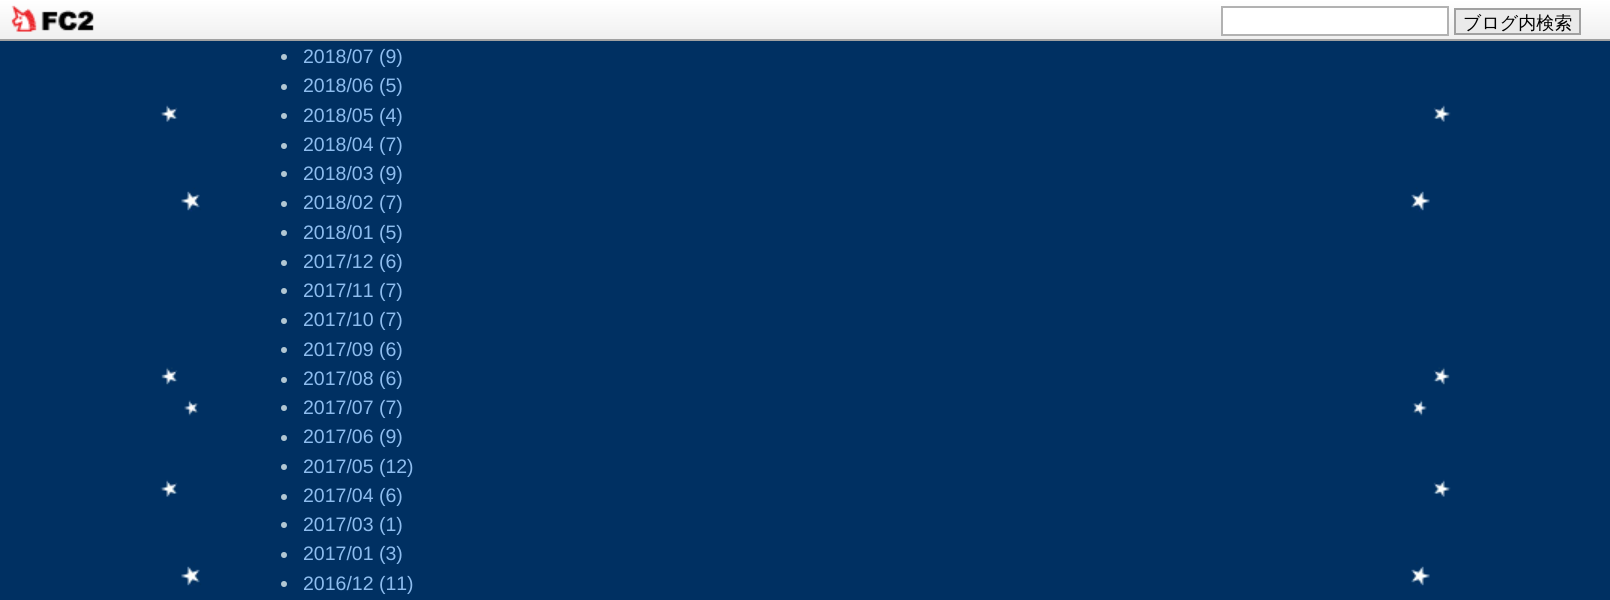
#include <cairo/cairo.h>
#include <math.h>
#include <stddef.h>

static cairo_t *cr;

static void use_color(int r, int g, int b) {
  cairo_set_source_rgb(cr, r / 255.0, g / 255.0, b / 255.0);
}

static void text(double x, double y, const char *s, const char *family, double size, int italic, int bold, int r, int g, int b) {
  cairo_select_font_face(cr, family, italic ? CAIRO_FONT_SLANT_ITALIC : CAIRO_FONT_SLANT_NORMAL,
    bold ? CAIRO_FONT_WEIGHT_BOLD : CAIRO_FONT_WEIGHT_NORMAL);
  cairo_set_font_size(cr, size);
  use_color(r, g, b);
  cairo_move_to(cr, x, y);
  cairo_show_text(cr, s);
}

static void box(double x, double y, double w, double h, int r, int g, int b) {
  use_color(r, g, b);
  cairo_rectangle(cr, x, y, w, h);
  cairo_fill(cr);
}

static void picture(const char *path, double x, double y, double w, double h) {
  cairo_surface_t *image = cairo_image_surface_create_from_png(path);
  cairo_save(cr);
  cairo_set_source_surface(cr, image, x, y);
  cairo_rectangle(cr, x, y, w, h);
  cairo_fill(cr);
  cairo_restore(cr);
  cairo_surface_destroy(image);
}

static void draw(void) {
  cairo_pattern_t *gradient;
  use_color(0, 48, 98);
  cairo_paint(cr);
  picture("img_01.png", 160, 41, 1291, 546);
  gradient = cairo_pattern_create_linear(0, 0, 0, 39);
  cairo_pattern_add_color_stop_rgba(gradient, 0, 1, 1, 1, 1);
  cairo_pattern_add_color_stop_rgba(gradient, 1, 0.941, 0.941, 0.941, 1);
  cairo_set_source(cr, gradient);
  cairo_pattern_destroy(gradient);
  cairo_rectangle(cr, 0, 0, 1610, 39);
  cairo_fill(cr);
  box(0, 39, 1610, 2, 161, 161, 161);
  picture("img_02.png", 11, 5, 83, 27);
  use_color(255, 255, 255);
  cairo_rectangle(cr, 1222, 7, 226, 28);
  cairo_fill_preserve(cr);
  use_color(178, 178, 178);
  cairo_stroke(cr);
  use_color(234, 234, 234);
  cairo_rectangle(cr, 1455, 9, 125, 25);
  cairo_fill_preserve(cr);
  use_color(161, 161, 161);
  cairo_stroke(cr);
  use_color(178, 199, 211);
  cairo_arc(cr, 284, 57, 3, 0, 2 * M_PI);
  cairo_fill(cr);
  cairo_arc(cr, 284, 87, 3, 0, 2 * M_PI);
  cairo_fill(cr);
  cairo_arc(cr, 284, 116, 3, 0, 2 * M_PI);
  cairo_fill(cr);
  cairo_arc(cr, 284, 146, 3, 0, 2 * M_PI);
  cairo_fill(cr);
  cairo_arc(cr, 284, 174, 3, 0, 2 * M_PI);
  cairo_fill(cr);
  cairo_arc(cr, 284, 204, 3, 0, 2 * M_PI);
  cairo_fill(cr);
  cairo_arc(cr, 284, 233, 3, 0, 2 * M_PI);
  cairo_fill(cr);
  cairo_arc(cr, 284, 263, 3, 0, 2 * M_PI);
  cairo_fill(cr);
  cairo_arc(cr, 284, 291, 3, 0, 2 * M_PI);
  cairo_fill(cr);
  cairo_arc(cr, 284, 321, 3, 0, 2 * M_PI);
  cairo_fill(cr);
  cairo_arc(cr, 284, 350, 3, 0, 2 * M_PI);
  cairo_fill(cr);
  cairo_arc(cr, 284, 380, 3, 0, 2 * M_PI);
  cairo_fill(cr);
  cairo_arc(cr, 284, 408, 3, 0, 2 * M_PI);
  cairo_fill(cr);
  cairo_arc(cr, 284, 438, 3, 0, 2 * M_PI);
  cairo_fill(cr);
  cairo_arc(cr, 284, 467, 3, 0, 2 * M_PI);
  cairo_fill(cr);
  cairo_arc(cr, 284, 497, 3, 0, 2 * M_PI);
  cairo_fill(cr);
  cairo_arc(cr, 284, 525, 3, 0, 2 * M_PI);
  cairo_fill(cr);
  cairo_arc(cr, 284, 555, 3, 0, 2 * M_PI);
  cairo_fill(cr);
  cairo_arc(cr, 284, 584, 3, 0, 2 * M_PI);
  cairo_fill(cr);
  text(1463, 29, "ブログ内検索", "WenQuanYi Zen Hei Medium", 18, 0, 0, 0, 0, 0);
  text(303, 63, "2018/07 (9)", "Liberation Sans", 19.5, 0, 0, 142, 189, 239);
  text(303, 92, "2018/06 (5)", "Liberation Sans", 19.5, 0, 0, 142, 189, 239);
  text(303, 122, "2018/05 (4)", "Liberation Sans", 19.5, 0, 0, 142, 189, 239);
  text(303, 151, "2018/04 (7)", "Liberation Sans", 19.5, 0, 0, 142, 189, 239);
  text(303, 180, "2018/03 (9)", "Liberation Sans", 19.5, 0, 0, 142, 189, 239);
  text(303, 209, "2018/02 (7)", "Liberation Sans", 19.5, 0, 0, 142, 189, 239);
  text(303, 239, "2018/01 (5)", "Liberation Sans", 19.5, 0, 0, 142, 189, 239);
  text(303, 268, "2017/12 (6)", "Liberation Sans", 19.5, 0, 0, 142, 189, 239);
  text(303, 297, "2017/11 (7)", "Liberation Sans", 19.5, 0, 0, 142, 189, 239);
  text(303, 326, "2017/10 (7)", "Liberation Sans", 19.5, 0, 0, 142, 189, 239);
  text(303, 356, "2017/09 (6)", "Liberation Sans", 19.5, 0, 0, 142, 189, 239);
  text(303, 385, "2017/08 (6)", "Liberation Sans", 19.5, 0, 0, 142, 189, 239);
  text(303, 414, "2017/07 (7)", "Liberation Sans", 19.5, 0, 0, 142, 189, 239);
  text(303, 443, "2017/06 (9)", "Liberation Sans", 19.5, 0, 0, 142, 189, 239);
  text(303, 473, "2017/05 (12)", "Liberation Sans", 19.5, 0, 0, 142, 189, 239);
  text(303, 502, "2017/04 (6)", "Liberation Sans", 19.5, 0, 0, 142, 189, 239);
  text(303, 531, "2017/03 (1)", "Liberation Sans", 19.5, 0, 0, 142, 189, 239);
  text(303, 560, "2017/01 (3)", "Liberation Sans", 19.5, 0, 0, 142, 189, 239);
  text(303, 590, "2016/12 (11)", "Liberation Sans", 19.5, 0, 0, 142, 189, 239);
}

int main(void) {
  cairo_surface_t *surface = cairo_image_surface_create(CAIRO_FORMAT_RGB24, 1610, 600);
  cr = cairo_create(surface);
  cairo_font_options_t *options = cairo_font_options_create();
  cairo_font_options_set_hint_metrics(options, CAIRO_HINT_METRICS_OFF);
  cairo_font_options_set_hint_style(options, CAIRO_HINT_STYLE_NONE);
  cairo_set_font_options(cr, options);
  cairo_set_miter_limit(cr, 4);
  draw();
  cairo_surface_write_to_png(surface, "out.png");
  cairo_font_options_destroy(options);
  cairo_destroy(cr);
  cairo_surface_destroy(surface);
  return 0;
}
